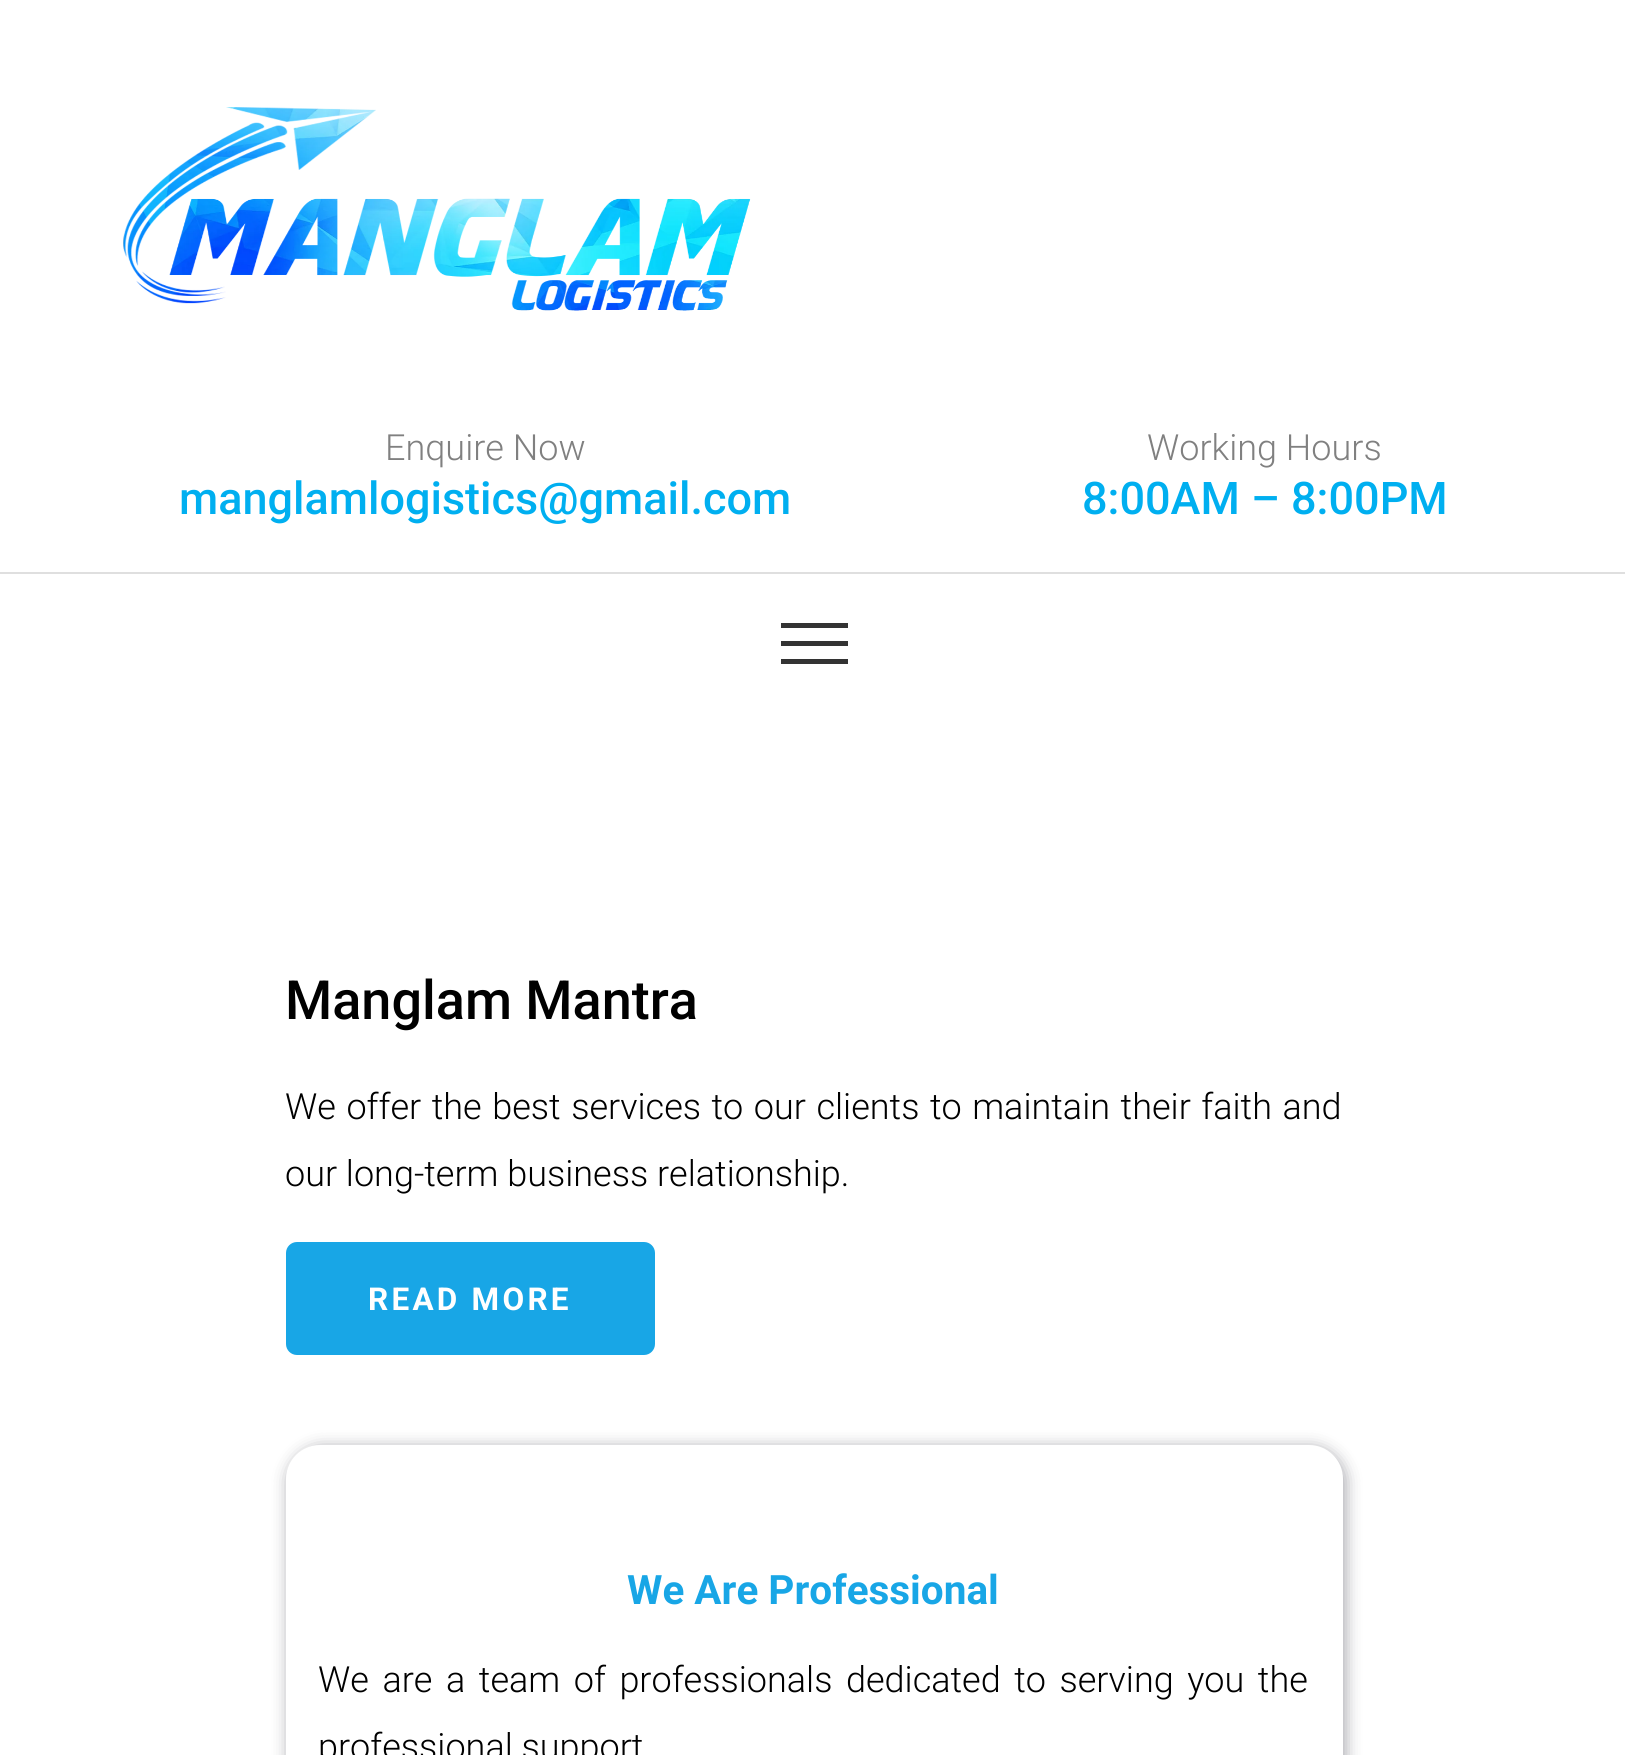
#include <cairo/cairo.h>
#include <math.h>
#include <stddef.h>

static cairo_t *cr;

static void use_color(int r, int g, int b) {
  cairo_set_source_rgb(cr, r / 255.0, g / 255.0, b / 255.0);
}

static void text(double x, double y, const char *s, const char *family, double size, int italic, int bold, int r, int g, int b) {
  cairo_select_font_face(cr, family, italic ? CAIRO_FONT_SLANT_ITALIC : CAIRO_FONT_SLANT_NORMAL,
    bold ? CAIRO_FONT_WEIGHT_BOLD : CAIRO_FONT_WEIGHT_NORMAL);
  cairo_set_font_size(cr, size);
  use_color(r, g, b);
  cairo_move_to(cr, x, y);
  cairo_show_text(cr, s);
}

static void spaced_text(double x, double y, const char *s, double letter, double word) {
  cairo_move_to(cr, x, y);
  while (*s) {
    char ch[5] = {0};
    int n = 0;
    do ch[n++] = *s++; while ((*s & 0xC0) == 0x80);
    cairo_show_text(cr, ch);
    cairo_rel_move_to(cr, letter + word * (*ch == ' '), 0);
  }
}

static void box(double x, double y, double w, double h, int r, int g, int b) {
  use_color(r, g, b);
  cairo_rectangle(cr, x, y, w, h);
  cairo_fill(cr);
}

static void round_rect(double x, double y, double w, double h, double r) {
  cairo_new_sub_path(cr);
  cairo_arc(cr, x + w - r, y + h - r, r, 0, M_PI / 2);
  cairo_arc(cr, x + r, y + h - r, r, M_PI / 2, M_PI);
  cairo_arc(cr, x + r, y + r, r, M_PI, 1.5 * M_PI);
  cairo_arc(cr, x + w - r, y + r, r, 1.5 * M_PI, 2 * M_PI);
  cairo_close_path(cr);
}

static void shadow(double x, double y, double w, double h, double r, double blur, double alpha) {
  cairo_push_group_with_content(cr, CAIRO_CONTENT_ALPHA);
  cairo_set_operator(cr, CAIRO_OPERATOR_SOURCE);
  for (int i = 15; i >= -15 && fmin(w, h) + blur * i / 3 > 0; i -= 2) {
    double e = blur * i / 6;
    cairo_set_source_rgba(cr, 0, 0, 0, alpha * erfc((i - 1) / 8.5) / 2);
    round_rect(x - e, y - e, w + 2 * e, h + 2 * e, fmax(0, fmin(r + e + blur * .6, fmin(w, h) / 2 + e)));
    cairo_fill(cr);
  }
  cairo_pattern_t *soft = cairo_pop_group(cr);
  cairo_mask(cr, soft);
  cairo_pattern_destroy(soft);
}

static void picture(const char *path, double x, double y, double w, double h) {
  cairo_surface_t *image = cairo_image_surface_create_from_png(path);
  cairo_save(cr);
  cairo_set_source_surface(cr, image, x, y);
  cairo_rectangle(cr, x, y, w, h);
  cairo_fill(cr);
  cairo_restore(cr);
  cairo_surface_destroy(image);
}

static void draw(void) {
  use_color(255, 255, 255);
  cairo_paint(cr);
  picture("img_01.png", 123, 107, 628, 204);
  box(0, 572, 1625, 2, 223, 223, 223);
  box(781, 641, 67, 5, 51, 51, 51);
  box(781, 623, 67, 5, 51, 51, 51);
  box(781, 659, 67, 5, 51, 51, 51);
  use_color(24, 166, 230);
  round_rect(288.5, 1244.5, 364, 108, 8.5);
  cairo_fill_preserve(cr);
  cairo_set_line_width(cr, 5);
  cairo_stroke(cr);
  use_color(0, 0, 17);
  shadow(288, 1447, 1058, 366, 34, 8, 0.33);
  use_color(255, 255, 255);
  round_rect(286, 1445, 1057, 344, 34);
  cairo_fill(cr);
  text(385, 460, "Enquire Now", "Roboto Light", 36, 0, 0, 128, 128, 128);
  text(179, 514, "manglamlogistics@gmail.com", "Roboto Medium", 45, 0, 0, 0, 175, 240);
  text(1147, 460, "Working Hours", "Roboto Light", 36, 0, 0, 128, 128, 128);
  text(1082, 514, "8:00AM – 8:00PM", "Roboto Medium", 45, 0, 0, 0, 175, 240);
  text(285, 1019, "Manglam Mantra", "Roboto Medium", 54, 0, 0, 0, 0, 0);
  cairo_select_font_face(cr, "Roboto Light", CAIRO_FONT_SLANT_NORMAL, CAIRO_FONT_WEIGHT_NORMAL);
  cairo_set_font_size(cr, 36);
  spaced_text(285, 1119, "We offer the best services to our clients to maintain their faith and", 0, 1.75);
  text(285, 1186, "our long-term business relationship.", "Roboto Light", 36, 0, 0, 0, 0, 0);
  cairo_select_font_face(cr, "Roboto", CAIRO_FONT_SLANT_NORMAL, CAIRO_FONT_WEIGHT_BOLD);
  cairo_set_font_size(cr, 31.5);
  use_color(255, 255, 255);
  spaced_text(368, 1310, "READ MORE", 3.25, 0);
  text(627, 1604, "We Are Professional", "Roboto", 40.5, 0, 1, 24, 166, 230);
  cairo_select_font_face(cr, "Roboto Light", CAIRO_FONT_SLANT_NORMAL, CAIRO_FONT_WEIGHT_NORMAL);
  cairo_set_font_size(cr, 36);
  use_color(0, 0, 0);
  spaced_text(318, 1692, "We are a team of professionals dedicated to serving you the", 0, 4.75);
  text(318, 1759, "professional support", "Roboto Light", 36, 0, 0, 0, 0, 0);
}

int main(void) {
  cairo_surface_t *surface = cairo_image_surface_create(CAIRO_FORMAT_RGB24, 1625, 1755);
  cr = cairo_create(surface);
  cairo_font_options_t *options = cairo_font_options_create();
  cairo_font_options_set_hint_metrics(options, CAIRO_HINT_METRICS_OFF);
  cairo_font_options_set_hint_style(options, CAIRO_HINT_STYLE_NONE);
  cairo_set_font_options(cr, options);
  cairo_set_miter_limit(cr, 4);
  draw();
  cairo_surface_write_to_png(surface, "out.png");
  cairo_font_options_destroy(options);
  cairo_destroy(cr);
  cairo_surface_destroy(surface);
  return 0;
}
